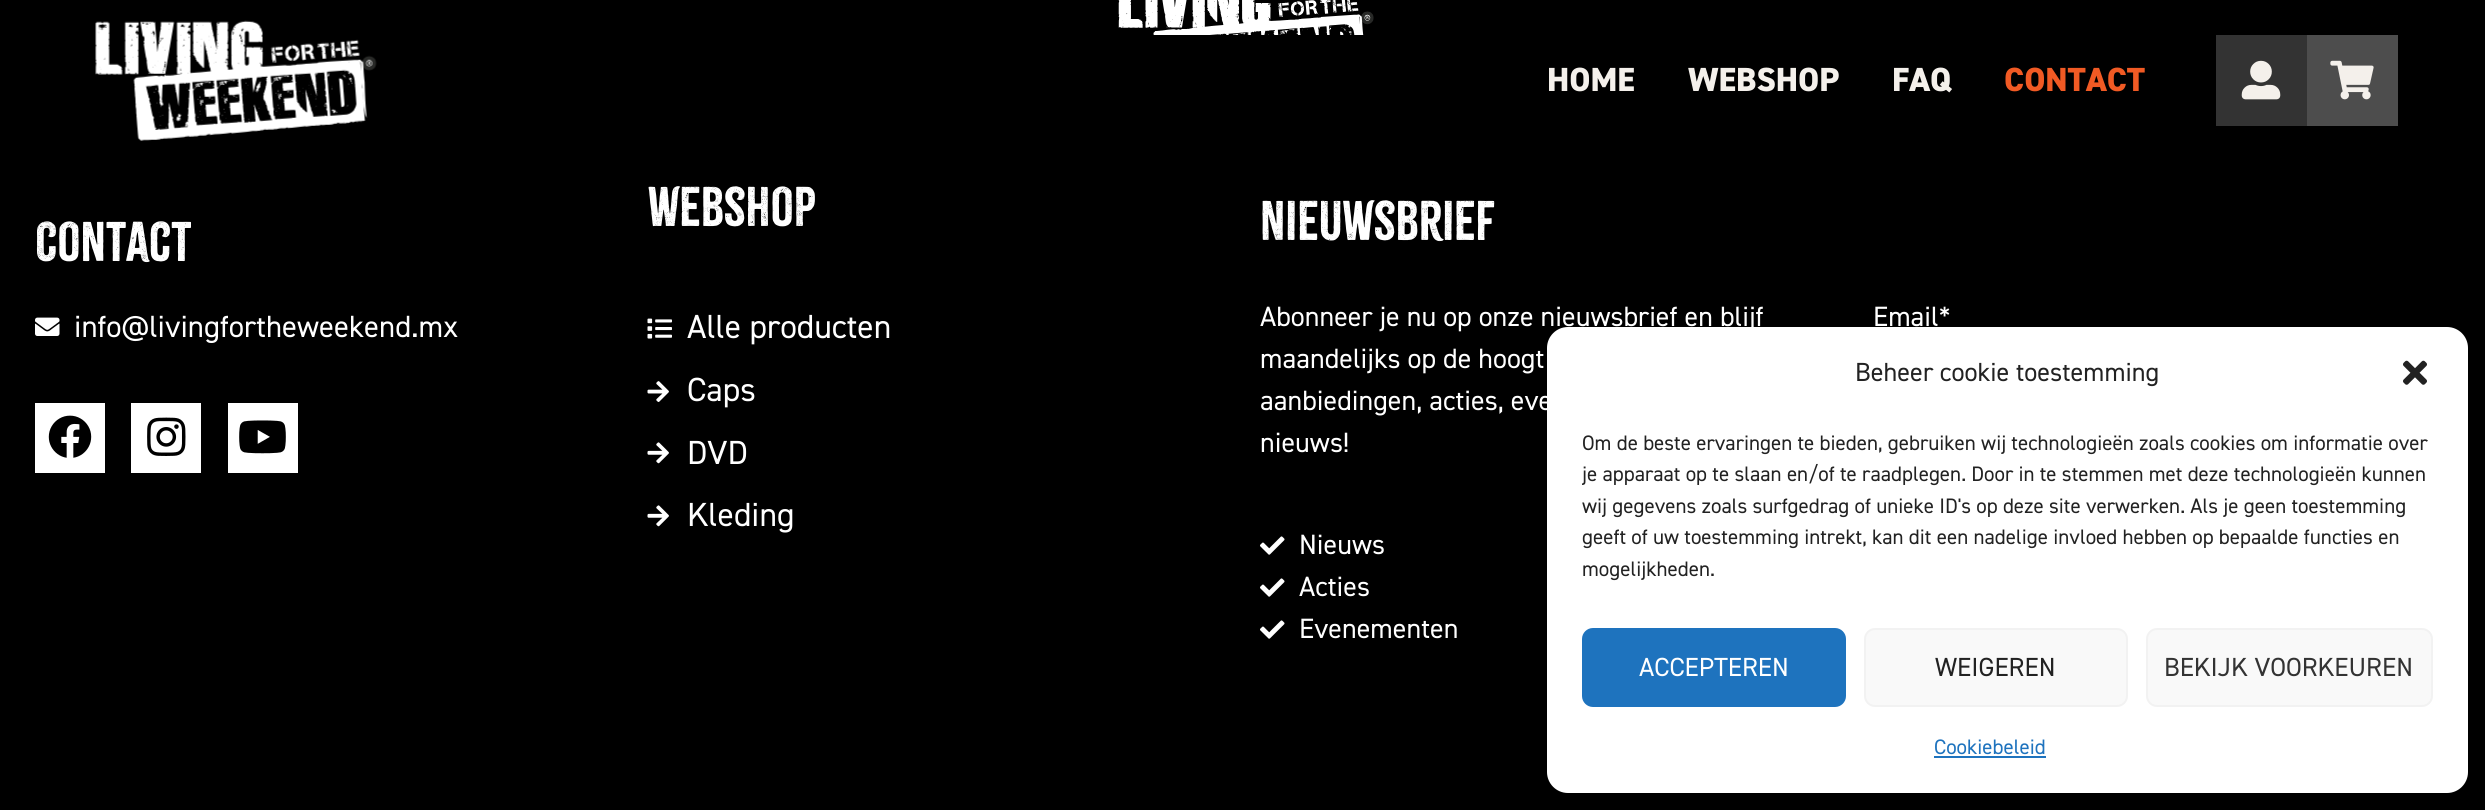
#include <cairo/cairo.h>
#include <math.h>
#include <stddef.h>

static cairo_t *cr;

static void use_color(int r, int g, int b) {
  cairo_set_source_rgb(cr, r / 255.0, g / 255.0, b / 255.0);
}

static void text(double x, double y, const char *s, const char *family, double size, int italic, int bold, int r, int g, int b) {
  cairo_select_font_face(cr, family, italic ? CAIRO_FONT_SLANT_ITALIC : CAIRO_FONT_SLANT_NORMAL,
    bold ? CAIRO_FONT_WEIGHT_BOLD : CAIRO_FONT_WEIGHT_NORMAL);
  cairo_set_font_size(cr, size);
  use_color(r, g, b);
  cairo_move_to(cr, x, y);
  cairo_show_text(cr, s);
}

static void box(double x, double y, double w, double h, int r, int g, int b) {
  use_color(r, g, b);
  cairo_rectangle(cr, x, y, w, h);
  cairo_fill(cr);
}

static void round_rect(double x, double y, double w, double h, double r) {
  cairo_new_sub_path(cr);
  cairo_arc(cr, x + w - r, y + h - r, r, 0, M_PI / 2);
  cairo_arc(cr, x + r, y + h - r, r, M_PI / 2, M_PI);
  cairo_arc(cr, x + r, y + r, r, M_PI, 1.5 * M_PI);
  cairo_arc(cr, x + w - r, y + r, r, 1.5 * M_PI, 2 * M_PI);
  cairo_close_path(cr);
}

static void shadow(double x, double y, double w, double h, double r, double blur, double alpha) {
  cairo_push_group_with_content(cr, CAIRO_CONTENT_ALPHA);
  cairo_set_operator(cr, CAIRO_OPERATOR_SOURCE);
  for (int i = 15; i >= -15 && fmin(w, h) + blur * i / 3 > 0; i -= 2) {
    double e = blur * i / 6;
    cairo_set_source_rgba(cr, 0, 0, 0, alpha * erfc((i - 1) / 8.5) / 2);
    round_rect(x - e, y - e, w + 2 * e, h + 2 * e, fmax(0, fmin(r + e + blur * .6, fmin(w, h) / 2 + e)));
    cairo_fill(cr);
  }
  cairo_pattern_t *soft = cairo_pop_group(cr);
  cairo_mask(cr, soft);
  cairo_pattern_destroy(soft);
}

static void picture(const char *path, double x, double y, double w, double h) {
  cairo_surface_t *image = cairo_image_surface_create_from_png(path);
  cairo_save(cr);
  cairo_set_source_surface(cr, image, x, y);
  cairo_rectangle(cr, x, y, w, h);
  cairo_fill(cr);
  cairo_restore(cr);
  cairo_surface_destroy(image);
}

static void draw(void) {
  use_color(0, 0, 0);
  cairo_paint(cr);
  picture("img_01.png", 95, 20, 282, 121);
  box(2216, 35, 91, 91, 51, 51, 51);
  picture("img_02.png", 2241, 60, 40, 40);
  box(2307, 35, 91, 91, 77, 77, 77);
  picture("img_03.png", 2330, 60, 44, 40);
  picture("img_04.png", 1118, 0, 256, 35);
  picture("img_05.png", 35, 317, 25, 19);
  box(35, 403, 70, 70, 255, 255, 255);
  picture("img_06.png", 48, 415, 44, 43);
  box(131, 403, 70, 70, 255, 255, 255);
  picture("img_07.png", 147, 417, 39, 39);
  box(228, 403, 70, 70, 255, 255, 255);
  picture("img_08.png", 239, 420, 47, 34);
  picture("img_09.png", 647, 318, 25, 21);
  picture("img_10.png", 647, 381, 22, 21);
  picture("img_11.png", 647, 442, 22, 22);
  picture("img_11.png", 647, 505, 22, 22);
  picture("img_12.png", 1260, 536, 25, 19);
  picture("img_12.png", 1260, 578, 25, 19);
  picture("img_12.png", 1260, 620, 25, 19);
  use_color(0, 0, 0);
  shadow(1547, 338, 921, 465, 21, 5, 0.23);
  shadow(1547, 345, 921, 465, 21, 17.5, 0.19);
  use_color(255, 255, 255);
  round_rect(1547, 327, 921, 466, 21);
  cairo_fill(cr);
  picture("img_13.png", 2403, 360, 24, 25);
  use_color(30, 115, 190);
  round_rect(1583, 629, 262, 77, 10);
  cairo_fill_preserve(cr);
  cairo_stroke(cr);
  use_color(249, 249, 249);
  round_rect(1865, 629, 262, 77, 10);
  cairo_fill_preserve(cr);
  use_color(242, 242, 242);
  cairo_stroke(cr);
  use_color(249, 249, 249);
  round_rect(2147, 629, 285, 77, 10);
  cairo_fill_preserve(cr);
  use_color(242, 242, 242);
  cairo_stroke(cr);
  box(1934, 756, 112, 2, 30, 115, 190);
  text(1547, 91, "HOME", "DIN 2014 ExtraBold", 33.5, 0, 0, 244, 240, 235);
  text(1688, 91, "WEBSHOP", "DIN 2014 ExtraBold", 33.5, 0, 0, 244, 240, 235);
  text(1892, 91, "FAQ", "DIN 2014 ExtraBold", 33.5, 0, 0, 244, 240, 235);
  text(2004, 91, "CONTACT", "DIN 2014 ExtraBold", 33.5, 0, 0, 241, 90, 36);
  text(35, 261, "Contact", "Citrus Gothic", 49, 0, 0, 255, 255, 255);
  text(74, 337, "info@livingfortheweekend.mx", "DIN 2014", 30.75, 0, 0, 255, 255, 255);
  text(648, 226, "Webshop", "Citrus Gothic", 49, 0, 0, 255, 255, 255);
  text(687, 338, "Alle producten", "DIN 2014", 33.5, 0, 0, 255, 255, 255);
  text(687, 401, "Caps", "DIN 2014", 33.5, 0, 0, 255, 255, 255);
  text(687, 464, "DVD", "DIN 2014", 33.5, 0, 0, 255, 255, 255);
  text(687, 526, "Kleding", "DIN 2014", 33.5, 0, 0, 255, 255, 255);
  text(1260, 240, "Nieuwsbrief", "Citrus Gothic", 49, 0, 0, 255, 255, 255);
  text(1260, 326, "Abonneer je nu op onze nieuwsbrief en blijf", "DIN 2014", 28, 0, 0, 255, 255, 255);
  text(1260, 368, "maandelijks op de hoogt", "DIN 2014", 28, 0, 0, 255, 255, 255);
  text(1260, 410, "aanbiedingen, acties, eve", "DIN 2014", 28, 0, 0, 255, 255, 255);
  text(1260, 452, "nieuws!", "DIN 2014", 28, 0, 0, 255, 255, 255);
  text(1299, 554, "Nieuws", "DIN 2014", 28, 0, 0, 255, 255, 255);
  text(1299, 596, "Acties", "DIN 2014", 28, 0, 0, 255, 255, 255);
  text(1299, 638, "Evenementen", "DIN 2014", 28, 0, 0, 255, 255, 255);
  text(1873, 326, "Email*", "DIN 2014", 28, 0, 0, 255, 255, 255);
  text(1855, 381, "Beheer cookie toestemming", "DIN 2014", 26.25, 0, 0, 34, 34, 34);
  text(1582, 450, "Om de beste ervaringen te bieden, gebruiken wij technologieën zoals cookies om informatie over", "DIN 2014", 21, 0, 0, 34, 34, 34);
  text(1582, 481, "je apparaat op te slaan en/of te raadplegen. Door in te stemmen met deze technologieën kunnen", "DIN 2014", 21, 0, 0, 34, 34, 34);
  text(1582, 513, "wij gegevens zoals surfgedrag of unieke ID's op deze site verwerken. Als je geen toestemming", "DIN 2014", 21, 0, 0, 34, 34, 34);
  text(1582, 544, "geeft of uw toestemming intrekt, kan dit een nadelige invloed hebben op bepaalde functies en", "DIN 2014", 21, 0, 0, 34, 34, 34);
  text(1582, 576, "mogelijkheden.", "DIN 2014", 21, 0, 0, 34, 34, 34);
  text(1639, 676, "ACCEPTEREN", "DIN 2014", 26.25, 0, 0, 255, 255, 255);
  text(1935, 676, "WEIGEREN", "DIN 2014", 26.25, 0, 0, 34, 34, 34);
  text(2164, 676, "BEKIJK VOORKEUREN", "DIN 2014", 26.25, 0, 0, 51, 51, 51);
  text(1934, 754, "Cookiebeleid", "DIN 2014", 21, 0, 0, 30, 115, 190);
}

int main(void) {
  cairo_surface_t *surface = cairo_image_surface_create(CAIRO_FORMAT_RGB24, 2485, 810);
  cr = cairo_create(surface);
  cairo_font_options_t *options = cairo_font_options_create();
  cairo_font_options_set_hint_metrics(options, CAIRO_HINT_METRICS_OFF);
  cairo_font_options_set_hint_style(options, CAIRO_HINT_STYLE_NONE);
  cairo_set_font_options(cr, options);
  cairo_set_miter_limit(cr, 4);
  draw();
  cairo_surface_write_to_png(surface, "out.png");
  cairo_font_options_destroy(options);
  cairo_destroy(cr);
  cairo_surface_destroy(surface);
  return 0;
}
